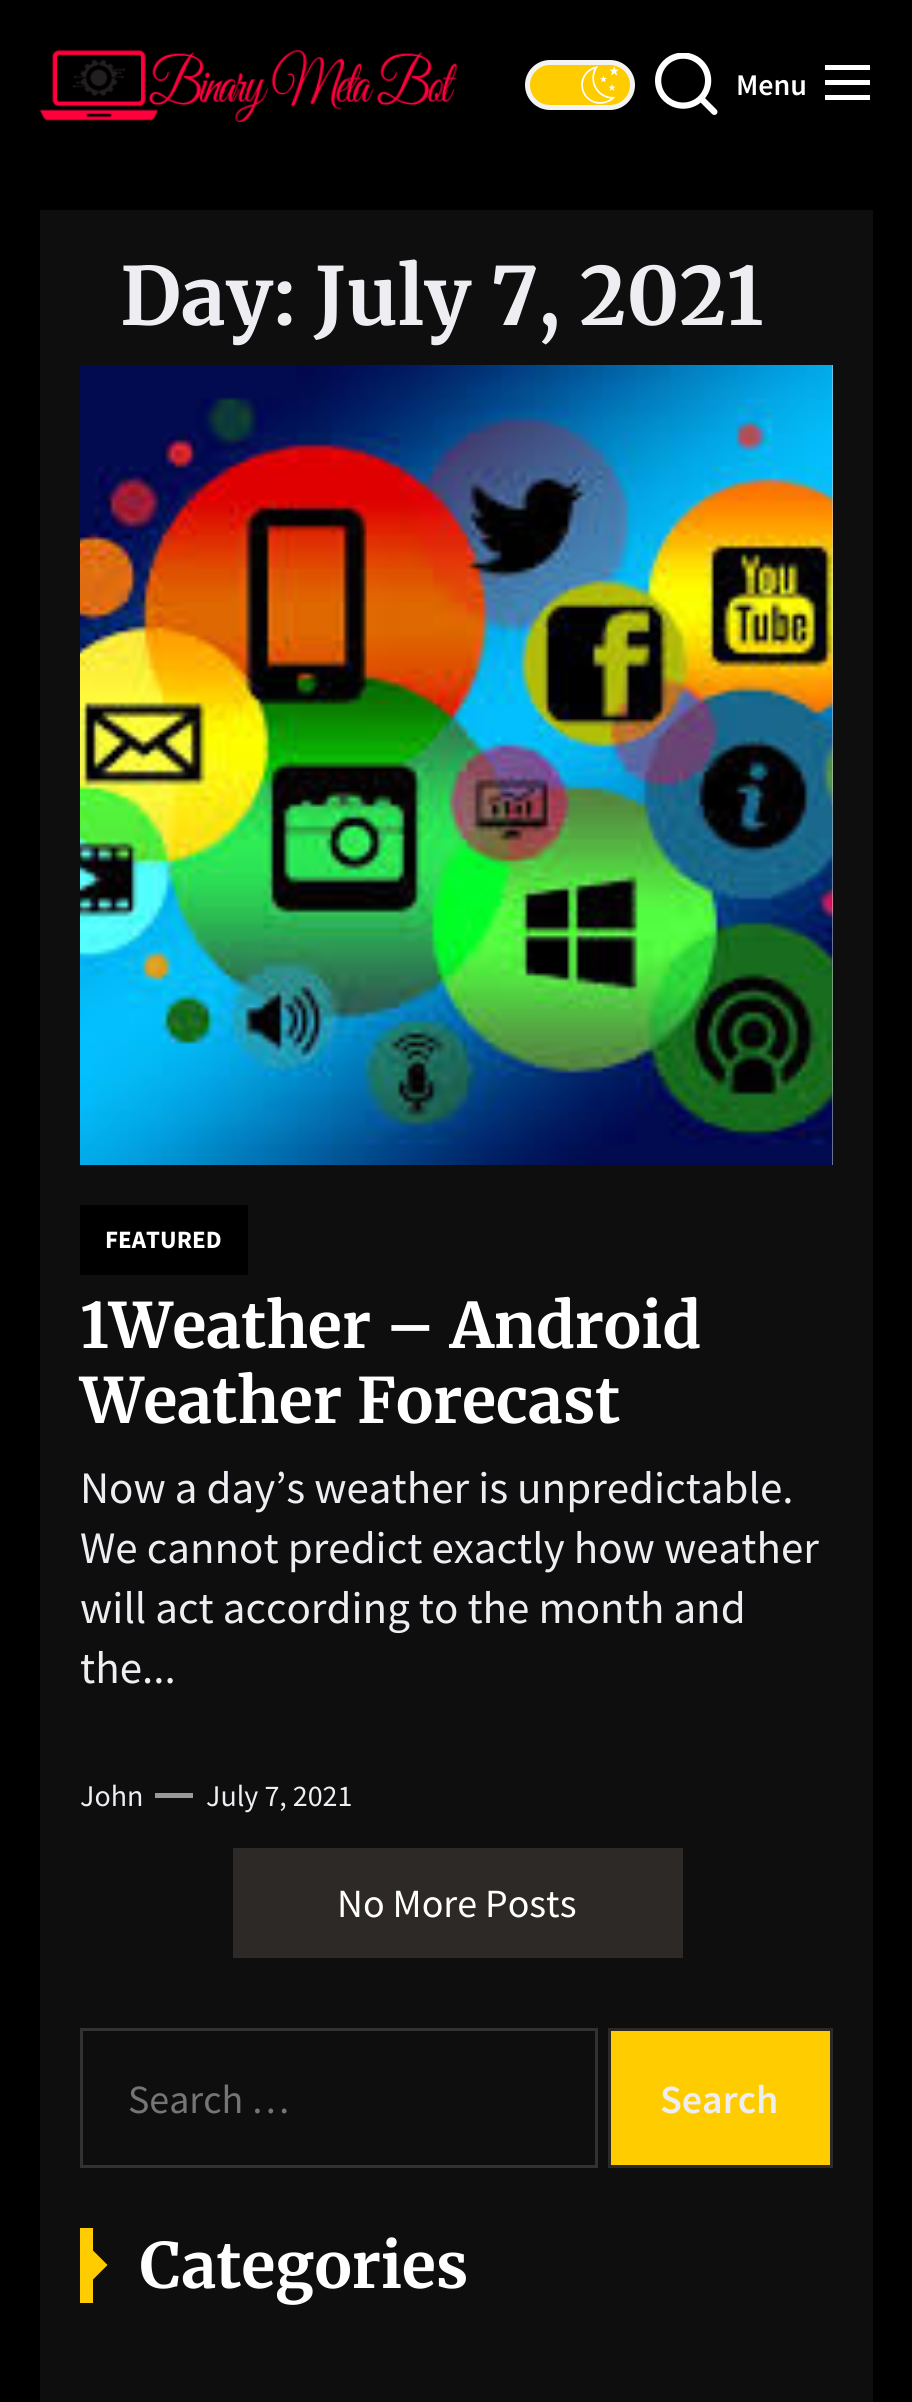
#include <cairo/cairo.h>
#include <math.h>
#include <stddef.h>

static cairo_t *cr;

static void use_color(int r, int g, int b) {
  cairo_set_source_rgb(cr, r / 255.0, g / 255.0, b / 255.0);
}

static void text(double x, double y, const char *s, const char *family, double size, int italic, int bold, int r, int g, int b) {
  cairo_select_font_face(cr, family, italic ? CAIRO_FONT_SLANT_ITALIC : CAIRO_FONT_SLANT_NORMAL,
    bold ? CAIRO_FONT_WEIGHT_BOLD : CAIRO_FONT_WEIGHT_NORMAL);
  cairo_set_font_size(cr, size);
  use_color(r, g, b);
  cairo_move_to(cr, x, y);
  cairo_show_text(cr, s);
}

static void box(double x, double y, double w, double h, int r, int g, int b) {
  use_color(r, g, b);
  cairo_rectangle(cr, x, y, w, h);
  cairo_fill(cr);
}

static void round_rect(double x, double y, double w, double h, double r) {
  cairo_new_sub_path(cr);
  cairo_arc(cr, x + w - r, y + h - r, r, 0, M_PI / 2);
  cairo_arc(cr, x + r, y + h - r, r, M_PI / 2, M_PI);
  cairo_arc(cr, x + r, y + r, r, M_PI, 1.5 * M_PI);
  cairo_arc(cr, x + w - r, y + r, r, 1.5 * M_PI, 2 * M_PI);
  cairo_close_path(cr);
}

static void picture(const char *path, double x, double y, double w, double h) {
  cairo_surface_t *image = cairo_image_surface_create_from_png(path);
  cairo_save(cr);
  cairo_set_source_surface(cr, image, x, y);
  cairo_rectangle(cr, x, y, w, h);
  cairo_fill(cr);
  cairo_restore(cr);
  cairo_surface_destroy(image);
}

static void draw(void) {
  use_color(0, 0, 0);
  cairo_paint(cr);
  picture("img_01.png", 40, 50, 418, 72);
  use_color(255, 204, 0);
  round_rect(527.5, 62.5, 105, 45, 22.5);
  cairo_fill_preserve(cr);
  use_color(243, 243, 243);
  cairo_set_line_width(cr, 5);
  cairo_stroke(cr);
  picture("img_02.png", 581, 66, 38, 38);
  picture("img_03.png", 655, 53, 63, 62);
  use_color(255, 255, 255);
  cairo_new_path(cr);
  cairo_move_to(cr, 825, 65);
  cairo_line_to(cr, 825, 70);
  cairo_line_to(cr, 870, 70);
  cairo_line_to(cr, 870, 65);
  cairo_close_path(cr);
  cairo_move_to(cr, 825, 85);
  cairo_line_to(cr, 870, 85);
  cairo_line_to(cr, 870, 80);
  cairo_line_to(cr, 825, 80);
  cairo_close_path(cr);
  cairo_move_to(cr, 825, 100);
  cairo_line_to(cr, 870, 100);
  cairo_line_to(cr, 870, 95);
  cairo_line_to(cr, 825, 95);
  cairo_close_path(cr);
  cairo_fill(cr);
  box(40, 210, 833, 2192, 14, 14, 14);
  box(832, 365, 1, 800, 216, 216, 216);
  picture("img_04.png", 80, 365, 753, 800);
  box(80, 1205, 168, 70, 0, 0, 0);
  box(155, 1793, 38, 5, 153, 153, 153);
  box(233, 1848, 450, 110, 45, 41, 38);
  cairo_rectangle(cr, 81.5, 2029.5, 515, 137);
  use_color(50, 50, 50);
  cairo_set_line_width(cr, 3);
  cairo_stroke(cr);
  use_color(255, 204, 0);
  cairo_rectangle(cr, 609.5, 2029.5, 222, 137);
  cairo_fill_preserve(cr);
  use_color(45, 41, 38);
  cairo_stroke(cr);
  box(80, 2228, 13, 75, 255, 204, 0);
  cairo_new_path(cr);
  cairo_move_to(cr, 92.5, 2280);
  cairo_line_to(cr, 92.5, 2250);
  cairo_line_to(cr, 107.5, 2265);
  cairo_close_path(cr);
  cairo_fill(cr);
  text(736, 95, "Menu", "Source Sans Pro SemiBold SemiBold", 30, 0, 0, 255, 255, 255);
  text(120, 325, "Day: July 7, 2021", "Merriweather", 80, 0, 1, 238, 238, 242);
  text(105, 1248, "FEATURED", "Source Sans Pro", 25, 0, 1, 255, 255, 255);
  text(80, 1348, "1Weather – Android", "Merriweather", 62.5, 0, 1, 255, 255, 255);
  text(80, 1423, "Weather Forecast", "Merriweather", 62.5, 0, 1, 255, 255, 255);
  text(80, 1503, "Now a day’s weather is unpredictable.", "Source Sans Pro", 45, 0, 0, 238, 238, 242);
  text(80, 1563, "We cannot predict exactly how weather", "Source Sans Pro", 45, 0, 0, 238, 238, 242);
  text(80, 1623, "will act according to the month and", "Source Sans Pro", 45, 0, 0, 238, 238, 242);
  text(80, 1683, "the...", "Source Sans Pro", 45, 0, 0, 238, 238, 242);
  text(80, 1806, "John", "Source Sans Pro", 30, 0, 0, 238, 238, 242);
  text(206, 1806, "July 7, 2021", "Source Sans Pro", 30, 0, 0, 238, 238, 242);
  text(337, 1917, "No More Posts", "Source Sans Pro", 40, 0, 0, 255, 255, 255);
  text(128, 2113, "Search …", "Source Sans Pro", 40, 0, 0, 117, 117, 117);
  text(660, 2113, "Search", "Source Sans Pro SemiBold SemiBold", 40, 0, 0, 238, 238, 242);
  text(140, 2288, "Categories", "Merriweather", 62.5, 0, 1, 255, 255, 255);
}

int main(void) {
  cairo_surface_t *surface = cairo_image_surface_create(CAIRO_FORMAT_RGB24, 912, 2402);
  cr = cairo_create(surface);
  cairo_font_options_t *options = cairo_font_options_create();
  cairo_font_options_set_hint_metrics(options, CAIRO_HINT_METRICS_OFF);
  cairo_font_options_set_hint_style(options, CAIRO_HINT_STYLE_NONE);
  cairo_set_font_options(cr, options);
  cairo_set_miter_limit(cr, 4);
  draw();
  cairo_surface_write_to_png(surface, "out.png");
  cairo_font_options_destroy(options);
  cairo_destroy(cr);
  cairo_surface_destroy(surface);
  return 0;
}
